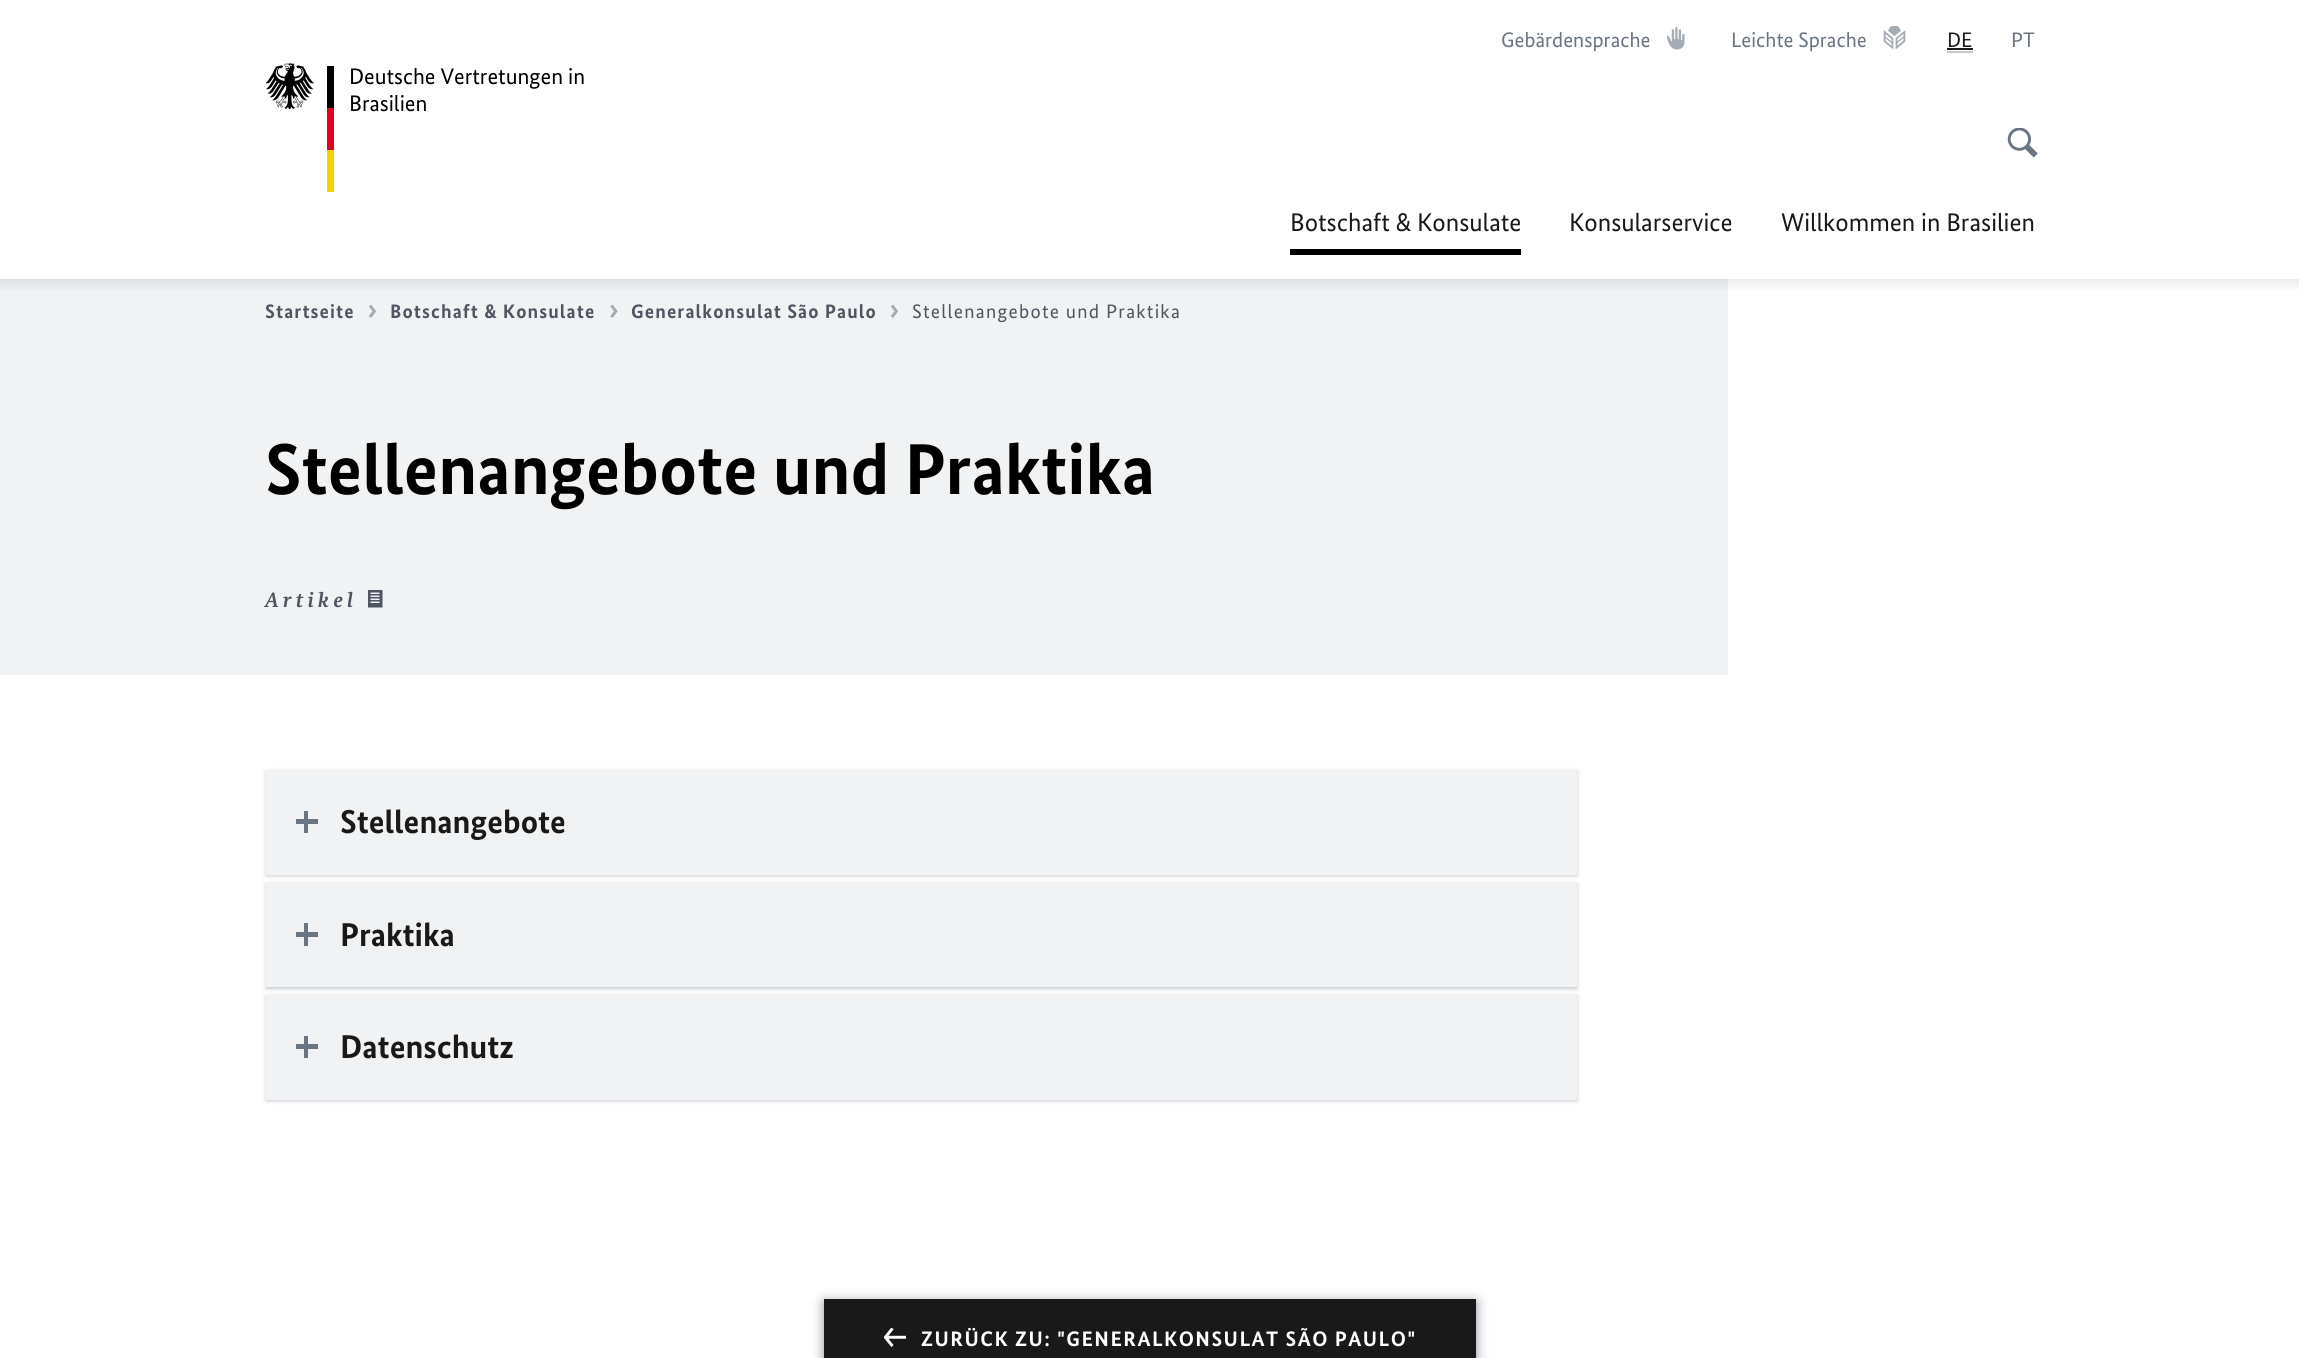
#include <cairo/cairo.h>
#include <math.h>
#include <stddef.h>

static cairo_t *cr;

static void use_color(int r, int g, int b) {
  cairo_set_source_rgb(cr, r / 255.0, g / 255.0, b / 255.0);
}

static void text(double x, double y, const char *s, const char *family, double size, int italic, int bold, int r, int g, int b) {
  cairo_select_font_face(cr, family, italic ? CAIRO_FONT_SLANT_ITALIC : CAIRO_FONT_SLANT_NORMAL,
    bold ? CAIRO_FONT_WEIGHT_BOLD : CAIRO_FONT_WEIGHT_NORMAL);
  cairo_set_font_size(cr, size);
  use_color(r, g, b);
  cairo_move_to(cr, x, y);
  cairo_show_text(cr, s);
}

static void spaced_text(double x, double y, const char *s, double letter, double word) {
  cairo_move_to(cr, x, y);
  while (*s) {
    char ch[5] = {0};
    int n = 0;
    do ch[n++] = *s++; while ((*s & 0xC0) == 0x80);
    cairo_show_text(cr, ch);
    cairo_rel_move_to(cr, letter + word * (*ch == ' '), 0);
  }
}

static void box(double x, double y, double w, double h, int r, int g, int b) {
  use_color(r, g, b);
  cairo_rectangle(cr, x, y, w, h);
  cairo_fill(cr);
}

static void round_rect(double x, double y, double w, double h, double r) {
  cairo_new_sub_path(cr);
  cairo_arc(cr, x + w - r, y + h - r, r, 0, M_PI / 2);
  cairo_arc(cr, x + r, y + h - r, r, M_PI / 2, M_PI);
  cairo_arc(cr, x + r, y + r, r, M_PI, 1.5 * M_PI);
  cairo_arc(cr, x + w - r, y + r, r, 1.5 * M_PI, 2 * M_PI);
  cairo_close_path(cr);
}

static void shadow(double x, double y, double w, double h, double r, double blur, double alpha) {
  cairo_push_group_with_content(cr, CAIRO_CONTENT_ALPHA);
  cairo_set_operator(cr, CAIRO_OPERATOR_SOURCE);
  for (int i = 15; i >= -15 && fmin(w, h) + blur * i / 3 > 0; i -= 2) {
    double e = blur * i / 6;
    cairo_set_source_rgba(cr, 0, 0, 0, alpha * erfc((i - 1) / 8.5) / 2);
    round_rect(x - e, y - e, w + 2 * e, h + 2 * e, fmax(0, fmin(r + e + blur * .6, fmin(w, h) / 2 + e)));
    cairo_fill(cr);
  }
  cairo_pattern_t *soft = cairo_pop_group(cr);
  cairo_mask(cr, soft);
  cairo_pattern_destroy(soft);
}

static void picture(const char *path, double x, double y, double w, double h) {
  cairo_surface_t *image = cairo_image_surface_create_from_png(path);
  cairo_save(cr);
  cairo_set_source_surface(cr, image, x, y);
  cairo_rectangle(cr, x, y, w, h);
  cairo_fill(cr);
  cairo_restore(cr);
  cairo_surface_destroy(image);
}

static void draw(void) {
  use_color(255, 255, 255);
  cairo_paint(cr);
  box(0, 279, 1728, 396, 241, 242, 243);
  cairo_save(cr);
  cairo_rectangle(cr, 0, 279, 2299, 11);
  cairo_clip(cr);
  use_color(0, 0, 0);
  shadow(-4, -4, 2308, 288, 0, 7, 0.1);
  cairo_restore(cr);
  picture("img_01.png", 266, 63, 68, 129);
  picture("img_02.png", 1667, 27, 18, 23);
  picture("img_03.png", 1883, 26, 23, 24);
  box(1947, 48, 26, 2, 25, 25, 25);
  box(1947, 51, 26, 2, 198, 198, 198);
  picture("img_04.png", 2007, 128, 31, 30);
  box(1290, 249, 231, 6, 0, 0, 0);
  picture("img_05.png", 368, 304, 8, 14);
  picture("img_06.png", 610, 304, 8, 14);
  picture("img_05.png", 890, 304, 8, 14);
  picture("img_07.png", 368, 590, 15, 18);
  use_color(137, 145, 154);
  shadow(266, 771, 1311, 105, 0, 2, 0.5);
  box(266, 770, 1311, 105, 241, 242, 243);
  box(296, 819, 22, 5, 107, 117, 129);
  box(304, 811, 4, 22, 107, 117, 129);
  use_color(137, 145, 154);
  shadow(266, 884, 1311, 105, 0, 2, 0.5);
  box(266, 882, 1311, 105, 241, 242, 243);
  box(296, 932, 22, 5, 107, 117, 129);
  box(304, 923, 4, 23, 107, 117, 129);
  use_color(137, 145, 154);
  shadow(266, 996, 1311, 105, 0, 2, 0.5);
  box(266, 995, 1311, 105, 241, 242, 243);
  box(296, 1044, 22, 5, 107, 117, 129);
  box(304, 1036, 4, 22, 107, 117, 129);
  use_color(137, 145, 154);
  shadow(824, 1302, 652, 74, 0, 6, 1);
  box(824, 1299, 652, 59, 25, 25, 25);
  picture("img_08.png", 884, 1328, 22, 19);
  text(349, 84, "Deutsche Vertretungen in", "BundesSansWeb", 22.5, 0, 0, 0, 0, 0);
  text(349, 111, "Brasilien", "BundesSansWeb", 22.5, 0, 0, 0, 0, 0);
  text(1501, 47, "Gebärdensprache", "BundesSansWeb", 21, 0, 0, 107, 117, 129);
  text(1731, 47, "Leichte Sprache", "BundesSansWeb", 21, 0, 0, 107, 117, 129);
  text(1947, 47, "DE", "BundesSansWeb", 21, 0, 0, 25, 25, 25);
  text(2011, 47, "PT", "BundesSansWeb", 21, 0, 0, 107, 117, 129);
  text(1290, 231, "Botschaft & Konsulate", "BundesSansWeb", 25.5, 0, 0, 25, 25, 25);
  text(1569, 231, "Konsularservice", "BundesSansWeb", 25.5, 0, 0, 25, 25, 25);
  text(1781, 231, "Willkommen in Brasilien", "BundesSansWeb", 25.5, 0, 0, 25, 25, 25);
  cairo_save(cr);
  cairo_rectangle(cr, 266, 299, 118, 27);
  cairo_clip(cr);
  cairo_select_font_face(cr, "BundesSansWeb", CAIRO_FONT_SLANT_NORMAL, CAIRO_FONT_WEIGHT_BOLD);
  cairo_set_font_size(cr, 19.5);
  use_color(79, 86, 97);
  spaced_text(265, 318, "Startseite", 1.1, 0);
  cairo_restore(cr);
  cairo_select_font_face(cr, "BundesSansWeb", CAIRO_FONT_SLANT_NORMAL, CAIRO_FONT_WEIGHT_BOLD);
  cairo_set_font_size(cr, 19.5);
  use_color(79, 86, 97);
  spaced_text(390, 318, "Botschaft & Konsulate", 1.1, 0);
  spaced_text(631, 318, "Generalkonsulat São Paulo", 1.1, 0);
  cairo_select_font_face(cr, "BundesSansWeb", CAIRO_FONT_SLANT_NORMAL, CAIRO_FONT_WEIGHT_NORMAL);
  spaced_text(912, 318, "Stellenangebote und Praktika", 1.25, 0);
  text(265, 494, "Stellenangebote und Praktika", "BundesSansWeb", 72, 0, 1, 0, 0, 0);
  cairo_select_font_face(cr, "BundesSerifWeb", CAIRO_FONT_SLANT_ITALIC, CAIRO_FONT_WEIGHT_BOLD);
  cairo_set_font_size(cr, 21);
  use_color(79, 86, 97);
  spaced_text(265, 607, "Artikel", 4.25, 0);
  text(340, 833, "Stellenangebote", "BundesSansWeb", 33, 0, 1, 25, 25, 25);
  text(340, 946, "Praktika", "BundesSansWeb", 33, 0, 1, 25, 25, 25);
  text(340, 1058, "Datenschutz", "BundesSansWeb", 33, 0, 1, 25, 25, 25);
  cairo_set_font_size(cr, 21);
  use_color(255, 255, 255);
  spaced_text(921, 1346, "ZURÜCK ZU: \"GENERALKONSULAT SÃO PAULO\"", 1.5, 0);
}

int main(void) {
  cairo_surface_t *surface = cairo_image_surface_create(CAIRO_FORMAT_RGB24, 2299, 1358);
  cr = cairo_create(surface);
  cairo_font_options_t *options = cairo_font_options_create();
  cairo_font_options_set_hint_metrics(options, CAIRO_HINT_METRICS_OFF);
  cairo_font_options_set_hint_style(options, CAIRO_HINT_STYLE_NONE);
  cairo_set_font_options(cr, options);
  cairo_set_miter_limit(cr, 4);
  draw();
  cairo_surface_write_to_png(surface, "out.png");
  cairo_font_options_destroy(options);
  cairo_destroy(cr);
  cairo_surface_destroy(surface);
  return 0;
}
